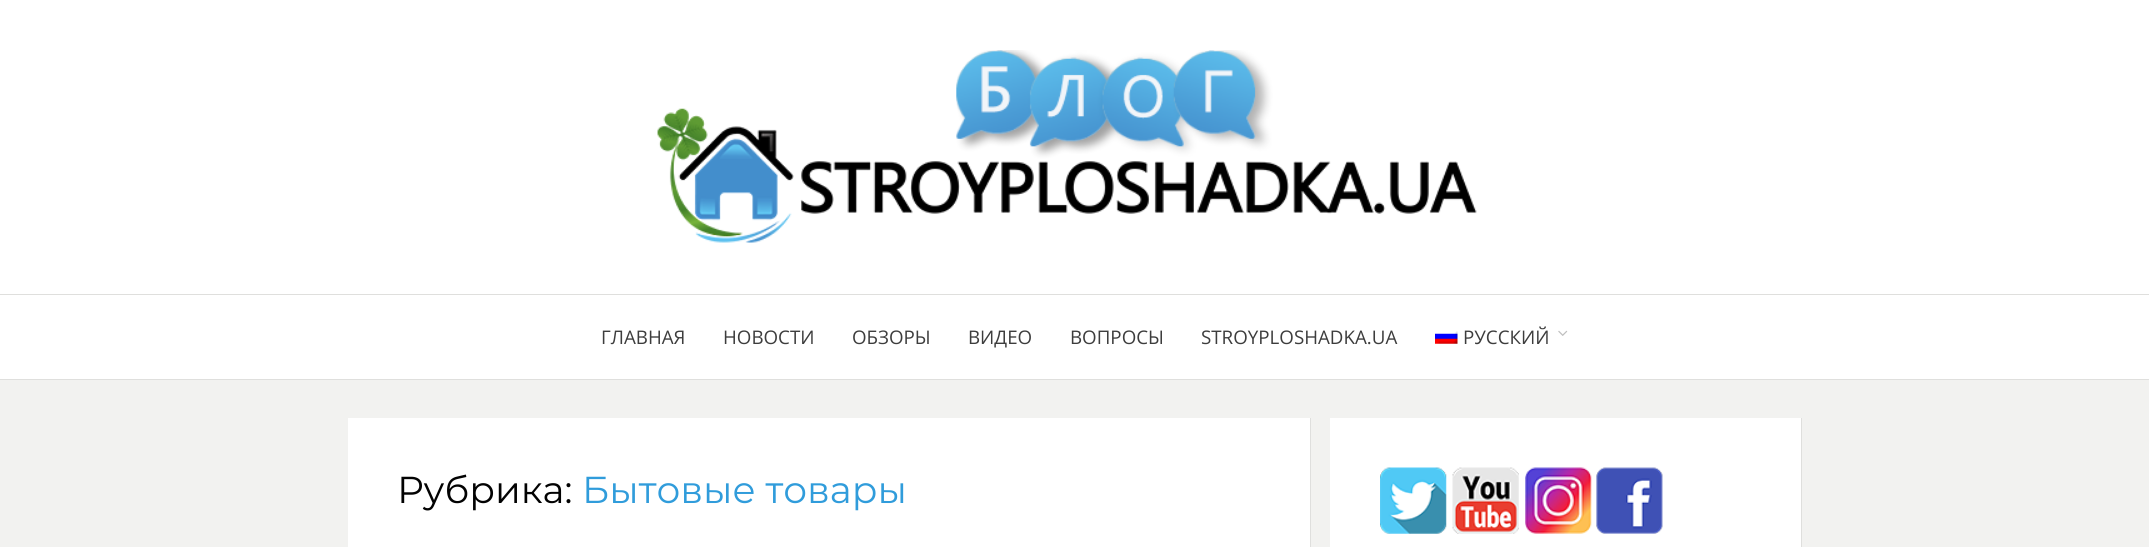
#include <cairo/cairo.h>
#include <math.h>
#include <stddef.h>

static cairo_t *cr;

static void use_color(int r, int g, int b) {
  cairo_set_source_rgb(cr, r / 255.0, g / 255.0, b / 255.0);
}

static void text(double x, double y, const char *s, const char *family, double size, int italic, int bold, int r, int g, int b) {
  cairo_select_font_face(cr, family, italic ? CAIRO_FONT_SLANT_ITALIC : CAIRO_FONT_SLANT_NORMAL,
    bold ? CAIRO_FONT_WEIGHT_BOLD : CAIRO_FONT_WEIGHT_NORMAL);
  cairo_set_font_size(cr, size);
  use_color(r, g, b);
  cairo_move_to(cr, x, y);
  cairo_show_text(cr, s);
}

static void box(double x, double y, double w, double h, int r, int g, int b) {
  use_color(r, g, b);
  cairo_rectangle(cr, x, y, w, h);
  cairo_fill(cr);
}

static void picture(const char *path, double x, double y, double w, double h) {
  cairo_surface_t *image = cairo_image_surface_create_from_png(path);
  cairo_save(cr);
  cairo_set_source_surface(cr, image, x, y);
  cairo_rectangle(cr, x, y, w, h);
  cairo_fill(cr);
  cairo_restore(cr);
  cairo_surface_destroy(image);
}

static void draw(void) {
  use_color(242, 242, 240);
  cairo_paint(cr);
  box(0, 0, 2149, 294, 255, 255, 255);
  picture("img_01.png", 657, 50, 820, 193);
  box(0, 295, 2149, 84, 255, 255, 255);
  box(0, 294, 2149, 1, 223, 223, 221);
  box(0, 379, 2149, 1, 223, 223, 221);
  picture("img_02.png", 1435, 331, 23, 13);
  picture("img_03.png", 1558, 330, 10, 6);
  box(348, 418, 962, 129, 255, 255, 255);
  box(1310, 418, 1, 129, 223, 223, 221);
  box(1330, 418, 471, 129, 255, 255, 255);
  box(1801, 418, 1, 129, 223, 223, 221);
  picture("img_04.png", 1380, 467, 67, 67);
  picture("img_05.png", 1452, 467, 67, 67);
  picture("img_06.png", 1525, 467, 67, 67);
  picture("img_07.png", 1596, 467, 67, 67);
  text(601, 344, "ГЛАВНАЯ", "Open Sans", 18.75, 0, 0, 61, 61, 61);
  text(723, 344, "НОВОСТИ", "Open Sans", 18.75, 0, 0, 61, 61, 61);
  text(852, 344, "ОБЗОРЫ", "Open Sans", 18.75, 0, 0, 61, 61, 61);
  text(968, 344, "ВИДЕО", "Open Sans", 18.75, 0, 0, 61, 61, 61);
  text(1070, 344, "ВОПРОСЫ", "Open Sans", 18.75, 0, 0, 61, 61, 61);
  text(1201, 344, "STROYPLOSHADKA.UA", "Open Sans", 18.75, 0, 0, 61, 61, 61);
  text(1463, 344, "РУССКИЙ", "Open Sans", 18.75, 0, 0, 61, 61, 61);
  text(397, 503, "Рубрика:", "Montserrat", 37.5, 0, 0, 2, 2, 2);
  text(582, 503, "Бытовые товары", "Montserrat", 37.5, 0, 0, 48, 156, 219);
}

int main(void) {
  cairo_surface_t *surface = cairo_image_surface_create(CAIRO_FORMAT_RGB24, 2149, 547);
  cr = cairo_create(surface);
  cairo_font_options_t *options = cairo_font_options_create();
  cairo_font_options_set_hint_metrics(options, CAIRO_HINT_METRICS_OFF);
  cairo_font_options_set_hint_style(options, CAIRO_HINT_STYLE_NONE);
  cairo_set_font_options(cr, options);
  cairo_set_miter_limit(cr, 4);
  draw();
  cairo_surface_write_to_png(surface, "out.png");
  cairo_font_options_destroy(options);
  cairo_destroy(cr);
  cairo_surface_destroy(surface);
  return 0;
}
